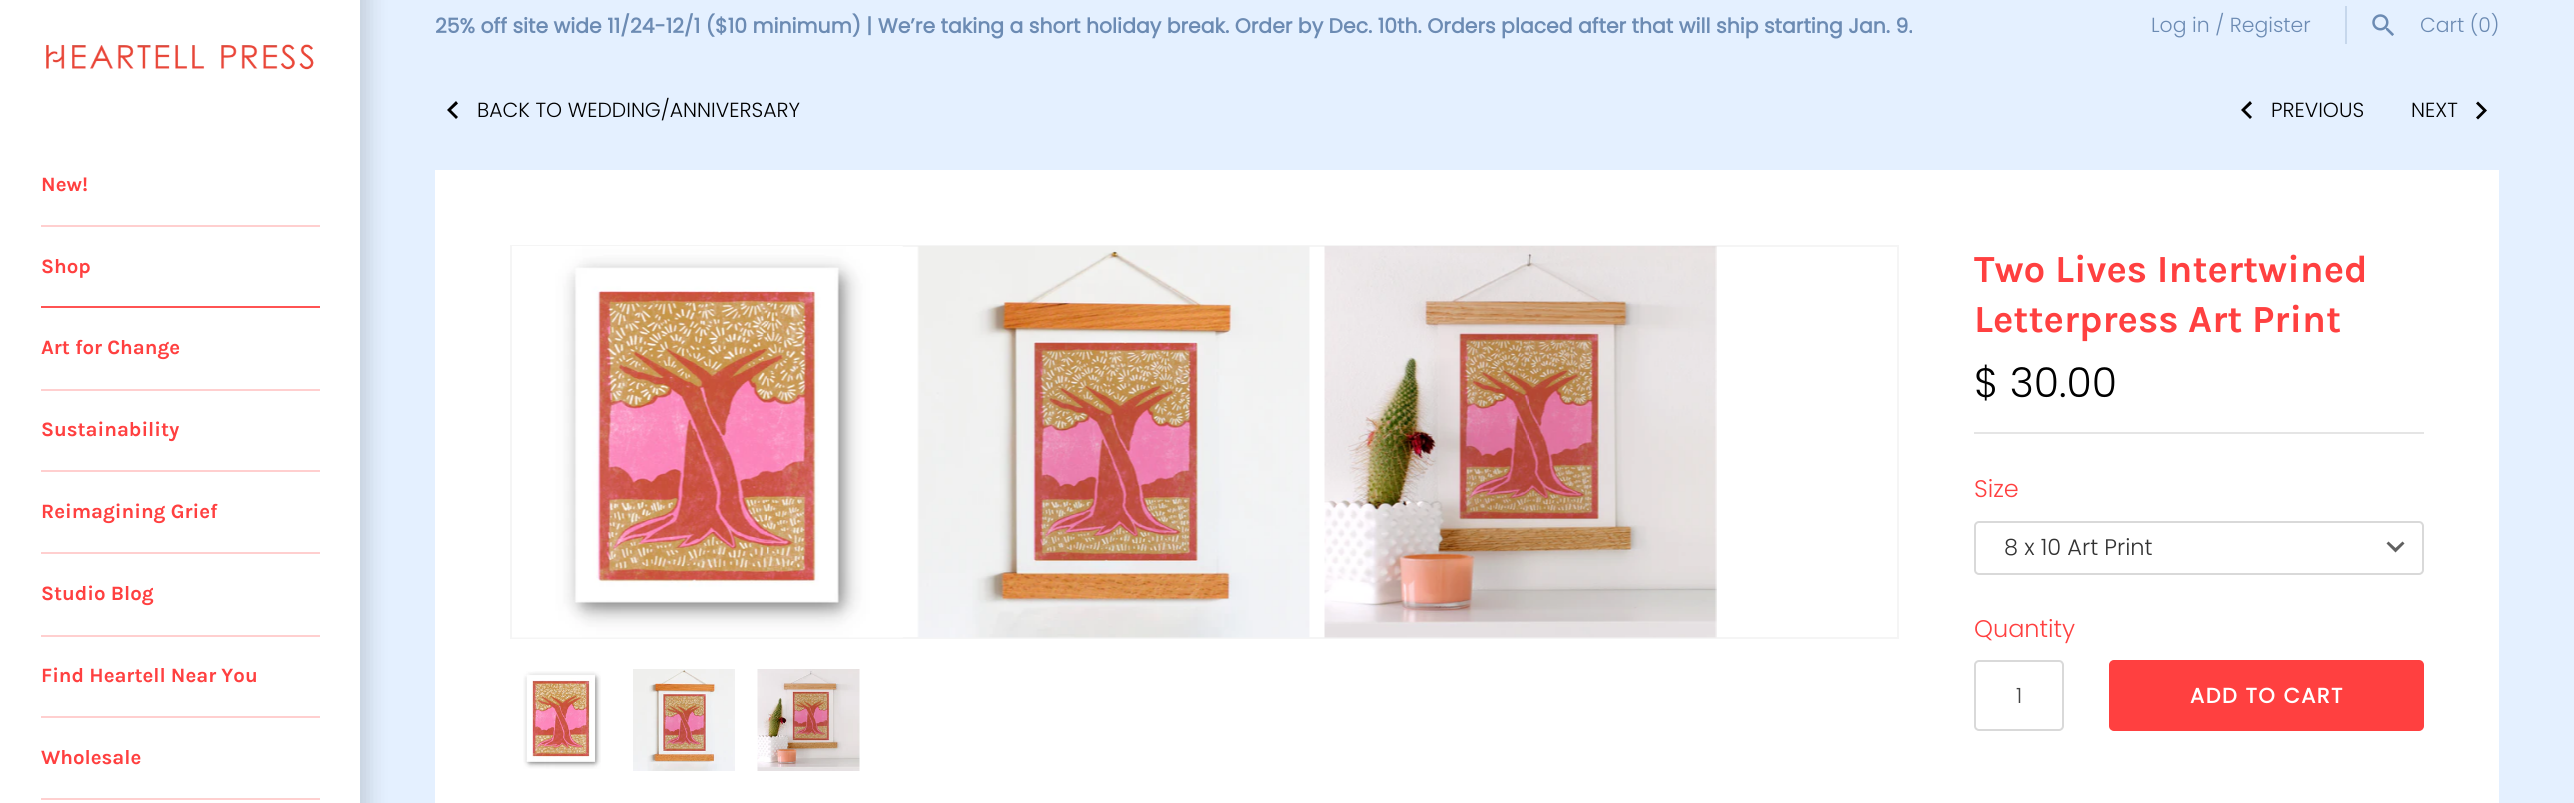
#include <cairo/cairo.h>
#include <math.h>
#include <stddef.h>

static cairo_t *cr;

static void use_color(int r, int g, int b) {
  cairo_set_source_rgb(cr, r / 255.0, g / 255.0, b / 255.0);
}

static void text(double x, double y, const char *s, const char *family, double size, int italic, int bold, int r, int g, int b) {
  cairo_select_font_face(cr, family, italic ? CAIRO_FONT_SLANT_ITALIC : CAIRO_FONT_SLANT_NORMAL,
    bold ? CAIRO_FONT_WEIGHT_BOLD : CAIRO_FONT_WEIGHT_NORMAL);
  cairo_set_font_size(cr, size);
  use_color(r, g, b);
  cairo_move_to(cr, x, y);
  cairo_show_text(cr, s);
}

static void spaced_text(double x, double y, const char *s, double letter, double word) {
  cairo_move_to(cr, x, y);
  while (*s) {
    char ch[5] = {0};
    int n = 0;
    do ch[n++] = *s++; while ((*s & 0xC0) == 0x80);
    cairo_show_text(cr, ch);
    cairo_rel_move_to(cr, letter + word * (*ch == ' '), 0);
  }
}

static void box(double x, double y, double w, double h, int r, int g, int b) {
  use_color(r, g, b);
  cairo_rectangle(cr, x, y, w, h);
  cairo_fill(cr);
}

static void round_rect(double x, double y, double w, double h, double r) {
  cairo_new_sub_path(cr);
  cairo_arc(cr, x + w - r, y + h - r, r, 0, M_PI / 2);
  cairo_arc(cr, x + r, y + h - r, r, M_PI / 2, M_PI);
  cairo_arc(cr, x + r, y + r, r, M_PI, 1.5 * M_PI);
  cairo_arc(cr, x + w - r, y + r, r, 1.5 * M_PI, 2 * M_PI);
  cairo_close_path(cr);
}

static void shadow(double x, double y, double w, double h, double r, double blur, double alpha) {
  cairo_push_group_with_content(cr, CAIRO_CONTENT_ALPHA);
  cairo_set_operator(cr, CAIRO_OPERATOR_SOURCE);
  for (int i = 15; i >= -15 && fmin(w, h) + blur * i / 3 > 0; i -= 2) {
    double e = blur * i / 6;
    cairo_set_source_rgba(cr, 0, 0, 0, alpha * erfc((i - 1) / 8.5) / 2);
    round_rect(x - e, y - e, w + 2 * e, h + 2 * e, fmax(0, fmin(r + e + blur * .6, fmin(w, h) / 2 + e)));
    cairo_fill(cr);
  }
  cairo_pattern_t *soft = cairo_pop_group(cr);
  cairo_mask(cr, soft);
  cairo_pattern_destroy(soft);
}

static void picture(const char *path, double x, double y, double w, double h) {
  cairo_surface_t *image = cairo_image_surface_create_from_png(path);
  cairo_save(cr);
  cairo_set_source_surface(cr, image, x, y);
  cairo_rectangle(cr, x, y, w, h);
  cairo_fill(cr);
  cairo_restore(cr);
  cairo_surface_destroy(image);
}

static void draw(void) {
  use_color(228, 240, 255);
  cairo_paint(cr);
  box(2345, 6, 2, 38, 198, 215, 236);
  picture("img_01.png", 2372, 14, 22, 22);
  use_color(0, 0, 0);
  shadow(-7, -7, 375, 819, 0, 11, 0.15);
  box(0, 0, 360, 803, 255, 255, 255);
  picture("img_02.png", 46, 44, 268, 26);
  box(41, 225, 279, 2, 255, 207, 207);
  box(41, 306, 279, 2, 255, 83, 83);
  box(41, 389, 279, 2, 255, 207, 207);
  box(41, 470, 279, 2, 255, 207, 207);
  box(41, 552, 279, 2, 255, 207, 207);
  box(41, 635, 279, 2, 255, 207, 207);
  box(41, 716, 279, 2, 255, 207, 207);
  box(41, 798, 279, 2, 255, 207, 207);
  use_color(0, 0, 0);
  cairo_new_path(cr);
  cairo_move_to(cr, 458, 117);
  cairo_line_to(cr, 451, 110);
  cairo_line_to(cr, 458, 103.5);
  cairo_line_to(cr, 456, 101);
  cairo_line_to(cr, 447, 110);
  cairo_line_to(cr, 456, 119);
  cairo_close_path(cr);
  cairo_fill(cr);
  cairo_new_path(cr);
  cairo_move_to(cr, 2252, 117);
  cairo_line_to(cr, 2245, 110);
  cairo_line_to(cr, 2252, 103.5);
  cairo_line_to(cr, 2250, 101);
  cairo_line_to(cr, 2241, 110);
  cairo_line_to(cr, 2250, 119);
  cairo_close_path(cr);
  cairo_fill(cr);
  cairo_new_path(cr);
  cairo_move_to(cr, 2476, 117.5);
  cairo_line_to(cr, 2483, 110.5);
  cairo_line_to(cr, 2476, 103.5);
  cairo_line_to(cr, 2478, 101.5);
  cairo_line_to(cr, 2487, 110.5);
  cairo_line_to(cr, 2478, 119.5);
  cairo_close_path(cr);
  cairo_fill(cr);
  box(435, 170, 2064, 633, 255, 255, 255);
  cairo_rectangle(cr, 511, 246, 1387, 392);
  use_color(245, 245, 245);
  cairo_stroke(cr);
  picture("img_03.png", 512, 246, 391, 392);
  picture("img_04.png", 917, 246, 393, 392);
  picture("img_05.png", 1324, 246, 393, 392);
  picture("img_06.png", 523, 671, 78, 98);
  picture("img_07.png", 633, 669, 102, 102);
  picture("img_08.png", 757, 669, 103, 102);
  box(1974, 432, 450, 2, 229, 229, 229);
  use_color(97, 97, 97);
  cairo_new_path(cr);
  cairo_move_to(cr, 2388.5, 541.5);
  cairo_line_to(cr, 2395.5, 548);
  cairo_line_to(cr, 2402.5, 541.5);
  cairo_line_to(cr, 2404.5, 543.5);
  cairo_line_to(cr, 2395.5, 552.5);
  cairo_line_to(cr, 2386.5, 543.5);
  cairo_close_path(cr);
  cairo_fill(cr);
  round_rect(1975, 522, 448, 52, 4);
  use_color(217, 217, 217);
  cairo_stroke(cr);
  round_rect(1975, 661, 88, 69, 4);
  cairo_stroke(cr);
  use_color(255, 64, 64);
  round_rect(2110, 661, 313, 69, 4);
  cairo_fill_preserve(cr);
  cairo_stroke(cr);
  text(435, 33, "25% off site wide 11/24-12/1 ($10 minimum) | We’re taking a short holiday break. Order by Dec. 10th. Orders placed after that will ship starting Jan. 9.", "Poppins", 20.4, 0, 1, 108, 139, 179);
  text(2151, 32, "Log in / Register", "Poppins Light", 20.4, 0, 0, 108, 139, 179);
  text(2420, 32, "Cart (0)", "Poppins Light", 20.4, 0, 0, 108, 139, 179);
  text(41, 191, "New!", "Karla", 20.4, 0, 1, 255, 64, 64);
  text(41, 273, "Shop", "Karla", 20.4, 0, 1, 255, 64, 64);
  text(41, 354, "Art for Change", "Karla", 20.4, 0, 1, 255, 64, 64);
  text(41, 436, "Sustainability", "Karla", 20.4, 0, 1, 255, 64, 64);
  text(41, 518, "Reimagining Grief", "Karla", 20.4, 0, 1, 255, 64, 64);
  text(41, 600, "Studio Blog", "Karla", 20.4, 0, 1, 255, 64, 64);
  text(41, 682, "Find Heartell Near You", "Karla", 20.4, 0, 1, 255, 64, 64);
  text(41, 764, "Wholesale", "Karla", 20.4, 0, 1, 255, 64, 64);
  text(477, 117, "BACK TO WEDDING/ANNIVERSARY", "Poppins Light", 20.4, 0, 0, 0, 0, 0);
  text(2271, 117, "PREVIOUS", "Poppins Light", 20.4, 0, 0, 0, 0, 0);
  text(2411, 117, "NEXT", "Poppins Light", 20.4, 0, 0, 0, 0, 0);
  text(1974, 282, "Two Lives Intertwined", "Karla", 38.4, 0, 1, 255, 64, 64);
  text(1974, 332, "Letterpress Art Print", "Karla", 38.4, 0, 1, 255, 64, 64);
  text(1974, 397, "$ 30.00", "Poppins Light", 41, 0, 0, 0, 0, 0);
  text(1974, 497, "Size", "Poppins Light", 24, 0, 0, 255, 64, 64);
  text(2004, 555, "8 x 10 Art Print", "Poppins Light", 22.5, 0, 0, 51, 51, 51);
  text(1974, 637, "Quantity", "Poppins Light", 24, 0, 0, 255, 64, 64);
  text(2016, 703, "1", "Poppins Light", 21, 0, 0, 68, 68, 68);
  cairo_select_font_face(cr, "Poppins", CAIRO_FONT_SLANT_NORMAL, CAIRO_FONT_WEIGHT_BOLD);
  use_color(255, 255, 255);
  spaced_text(2190, 703, "ADD TO CART", 1.5, 0);
}

int main(void) {
  cairo_surface_t *surface = cairo_image_surface_create(CAIRO_FORMAT_RGB24, 2574, 803);
  cr = cairo_create(surface);
  cairo_font_options_t *options = cairo_font_options_create();
  cairo_font_options_set_hint_metrics(options, CAIRO_HINT_METRICS_OFF);
  cairo_font_options_set_hint_style(options, CAIRO_HINT_STYLE_NONE);
  cairo_set_font_options(cr, options);
  cairo_set_miter_limit(cr, 4);
  draw();
  cairo_surface_write_to_png(surface, "out.png");
  cairo_font_options_destroy(options);
  cairo_destroy(cr);
  cairo_surface_destroy(surface);
  return 0;
}
